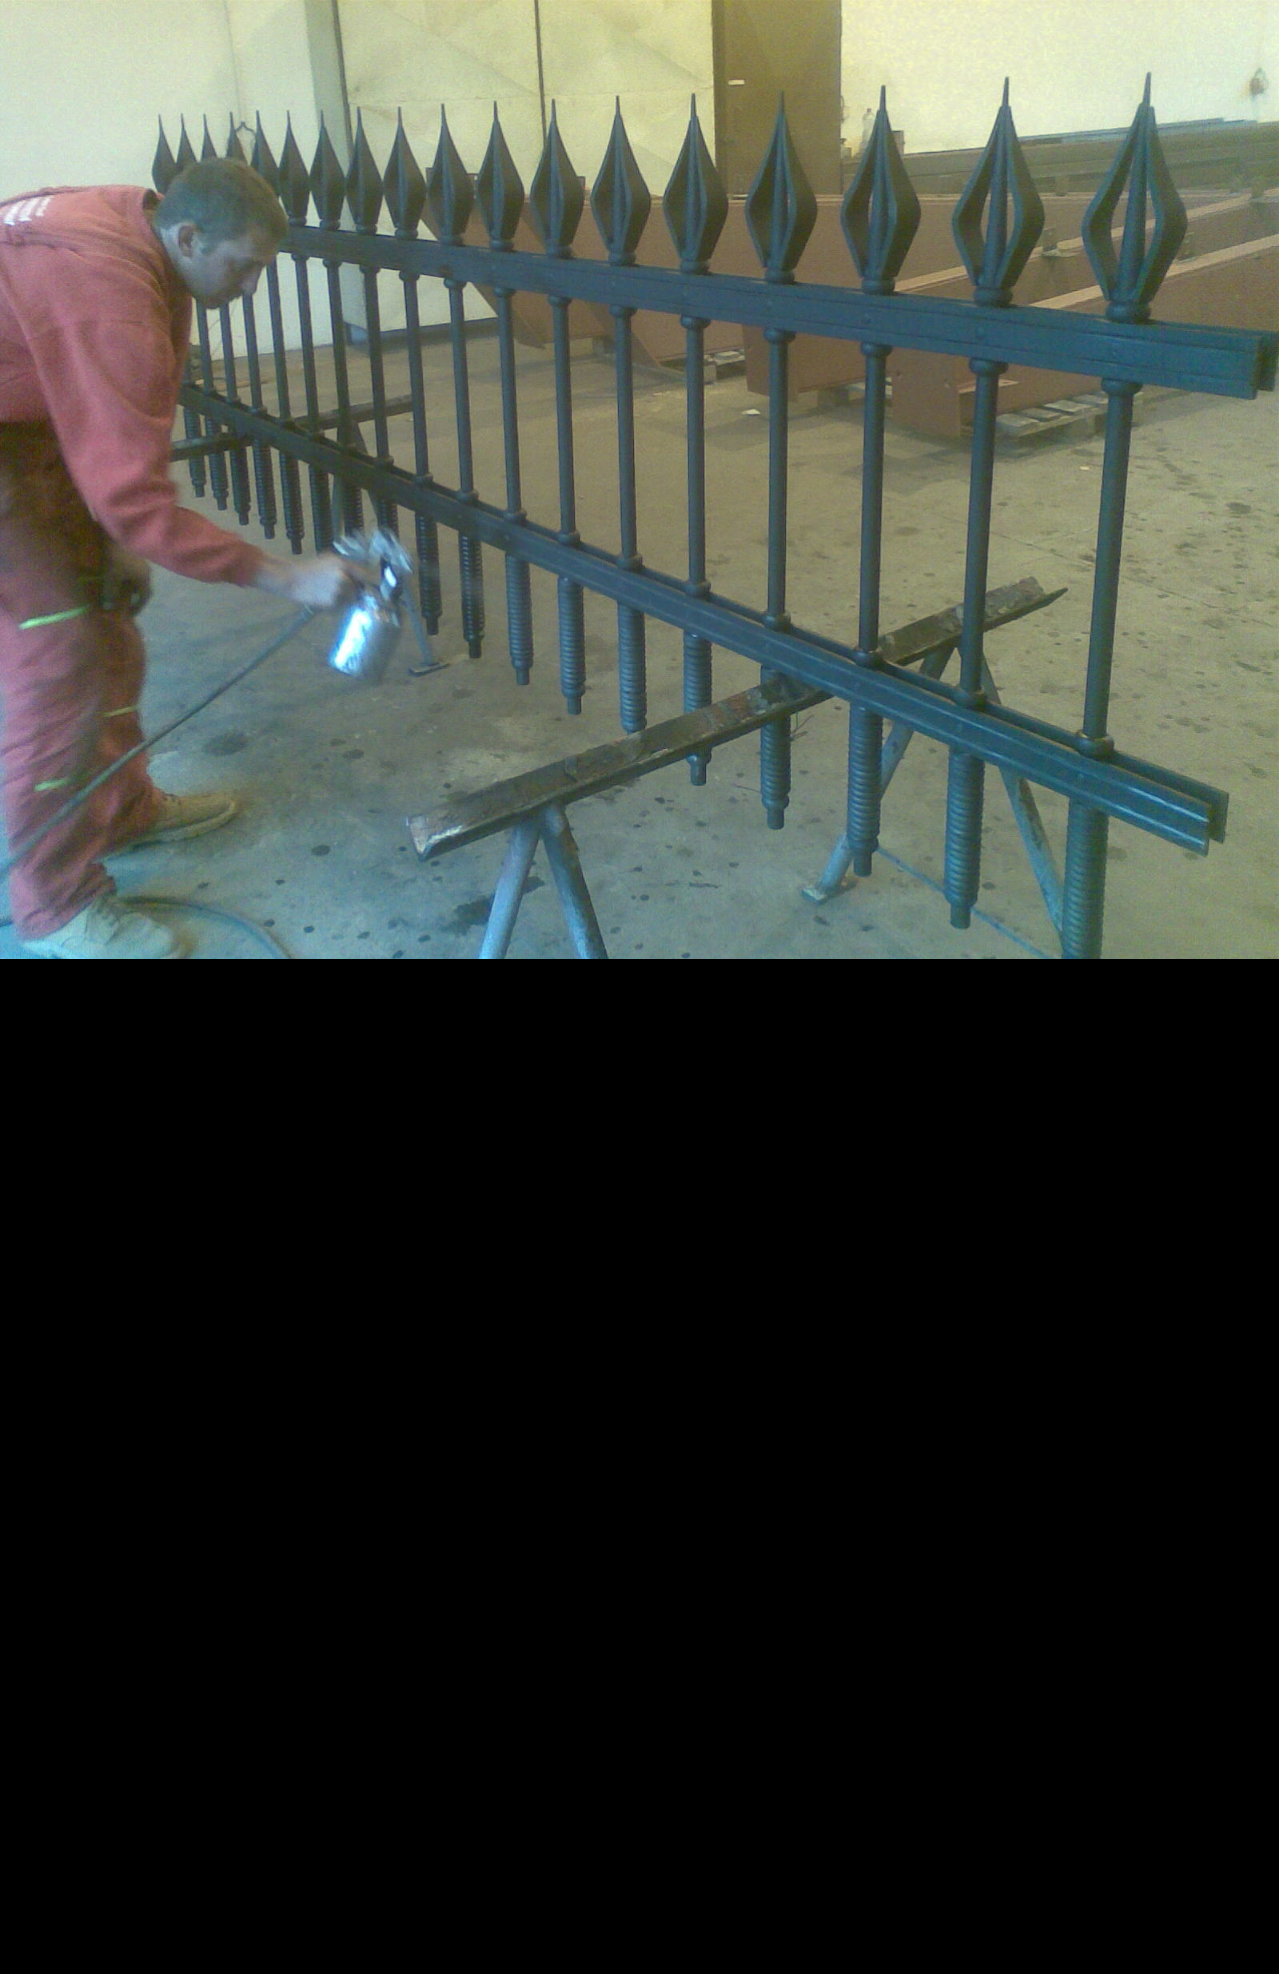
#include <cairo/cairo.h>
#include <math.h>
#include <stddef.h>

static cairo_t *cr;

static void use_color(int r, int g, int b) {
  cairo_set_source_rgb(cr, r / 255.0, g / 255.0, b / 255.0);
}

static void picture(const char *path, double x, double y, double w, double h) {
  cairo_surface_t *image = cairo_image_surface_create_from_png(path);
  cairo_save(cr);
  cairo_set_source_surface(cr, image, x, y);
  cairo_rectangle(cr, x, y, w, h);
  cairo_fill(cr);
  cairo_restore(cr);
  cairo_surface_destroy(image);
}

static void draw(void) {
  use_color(0, 0, 0);
  cairo_paint(cr);
  picture("img_01.png", 0, 0, 1279, 959);
}

int main(void) {
  cairo_surface_t *surface = cairo_image_surface_create(CAIRO_FORMAT_RGB24, 1279, 1974);
  cr = cairo_create(surface);
  cairo_font_options_t *options = cairo_font_options_create();
  cairo_font_options_set_hint_metrics(options, CAIRO_HINT_METRICS_OFF);
  cairo_font_options_set_hint_style(options, CAIRO_HINT_STYLE_NONE);
  cairo_set_font_options(cr, options);
  cairo_set_miter_limit(cr, 4);
  draw();
  cairo_surface_write_to_png(surface, "out.png");
  cairo_font_options_destroy(options);
  cairo_destroy(cr);
  cairo_surface_destroy(surface);
  return 0;
}
